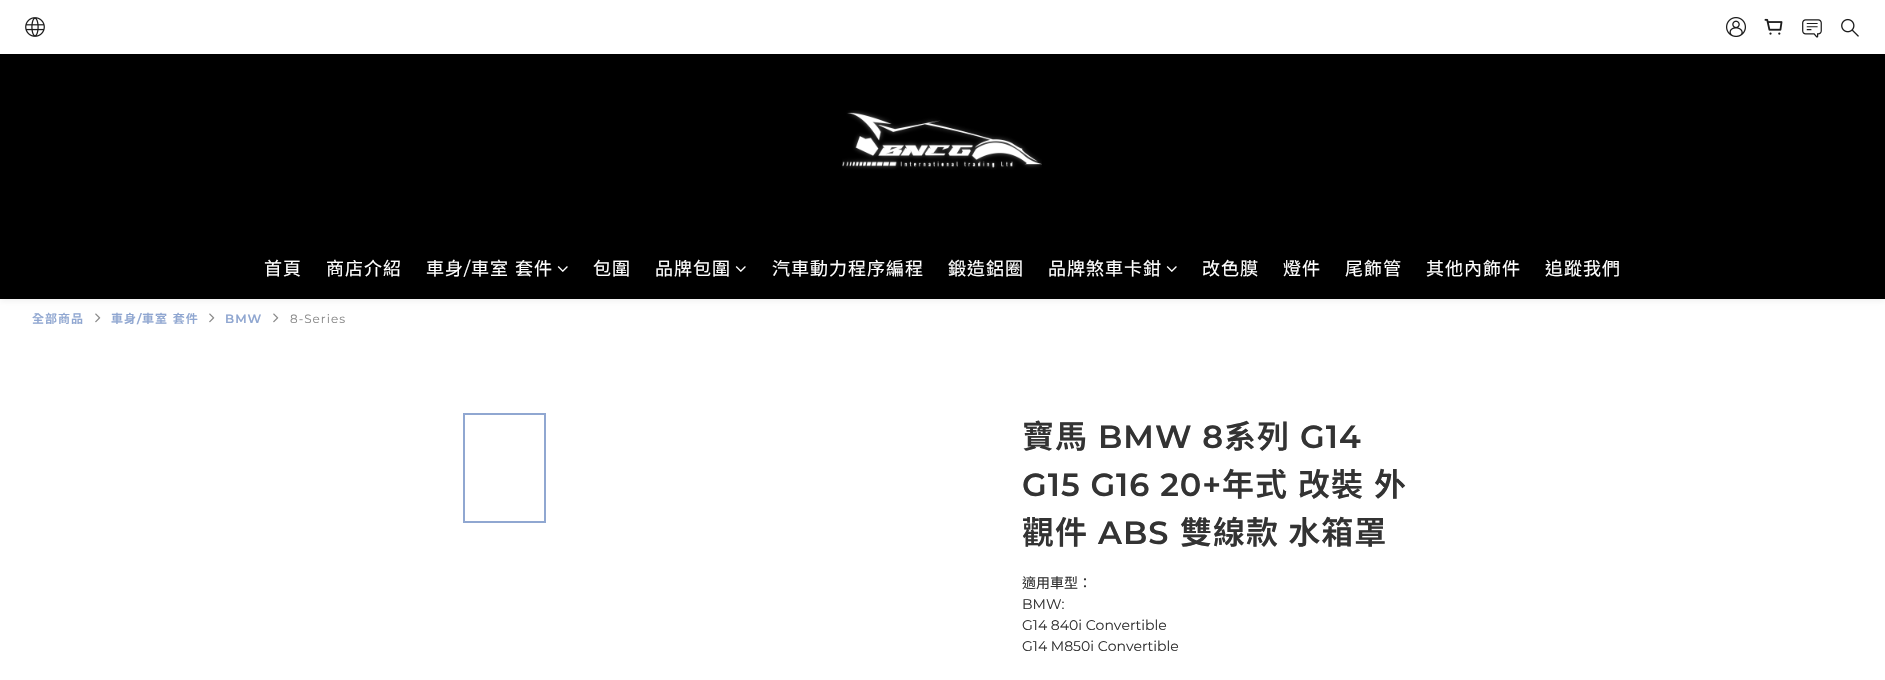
#include "include/core/SkBlurTypes.h"
#include "include/core/SkCanvas.h"
#include "include/core/SkData.h"
#include "include/core/SkFont.h"
#include "include/core/SkFontMgr.h"
#include "include/core/SkImage.h"
#include "include/core/SkMaskFilter.h"
#include "include/core/SkPaint.h"
#include "include/core/SkPathBuilder.h"
#include "include/core/SkTextBlob.h"
#include "include/effects/SkDashPathEffect.h"
#include "include/effects/SkGradientShader.h"
#include "include/utils/SkParsePath.h"

extern sk_sp<SkFontMgr> fontMgr;

void draw(SkCanvas* canvas) {
  SkPaint p;
  p.setAntiAlias(true);
  auto spacedText = [&](const char* s, float x, float y, const SkFont& font, const SkPaint& ink, float letter, float word) {
    std::vector<SkGlyphID> glyphs(font.countText(s, strlen(s), SkTextEncoding::kUTF8));
    std::vector<float> xs(glyphs.size());
    font.textToGlyphs(s, strlen(s), SkTextEncoding::kUTF8, glyphs);
    font.getXPos(glyphs, xs, x);
    float extra = 0;
    for (size_t i = 0; i < glyphs.size(); i++) {
      xs[i] += extra;
      extra += letter + word * (glyphs[i] == font.unicharToGlyph(' '));
    }
    canvas->drawTextBlob(SkTextBlob::MakeFromPosHGlyphs(glyphs, xs, y, font), 0, 0, ink);
  };
  canvas->clear(SK_ColorWHITE);
  p.setColor(SkColorSetARGB(15, 0, 0, 0));
  p.setMaskFilter(SkMaskFilter::MakeBlur(kNormal_SkBlurStyle, 3));
  canvas->drawRect(SkRect::MakeLTRB(0, 2, 1885, 301), p);
  p.setMaskFilter(nullptr);
  p.setColor(SK_ColorBLACK);
  canvas->drawRect(SkRect::MakeLTRB(0, 54, 1885, 299), p);
  p.setColor(SK_ColorWHITE);
  canvas->drawRect(SkRect::MakeLTRB(0, 0, 1885, 54), p);
  canvas->drawImageRect(SkImages::DeferredFromEncodedData(SkData::MakeFromFileName("images/1.png")), SkRect::MakeLTRB(25, 17, 45, 37), SkSamplingOptions());
  canvas->drawImageRect(SkImages::DeferredFromEncodedData(SkData::MakeFromFileName("images/2.png")), SkRect::MakeLTRB(1726, 17, 1746, 37), SkSamplingOptions());
  canvas->drawImageRect(SkImages::DeferredFromEncodedData(SkData::MakeFromFileName("images/3.png")), SkRect::MakeLTRB(1764, 18, 1783, 35), SkSamplingOptions());
  canvas->drawImageRect(SkImages::DeferredFromEncodedData(SkData::MakeFromFileName("images/4.png")), SkRect::MakeLTRB(1802, 19, 1822, 38), SkSamplingOptions());
  canvas->drawImageRect(SkImages::DeferredFromEncodedData(SkData::MakeFromFileName("images/5.png")), SkRect::MakeLTRB(1841, 18, 1859, 37), SkSamplingOptions());
  canvas->drawImageRect(SkImages::DeferredFromEncodedData(SkData::MakeFromFileName("images/6.png")), SkRect::MakeLTRB(842, 110, 1042, 170), SkSamplingOptions());
  canvas->drawImageRect(SkImages::DeferredFromEncodedData(SkData::MakeFromFileName("images/7.png")), SkRect::MakeLTRB(557, 266, 568, 272), SkSamplingOptions());
  canvas->drawImageRect(SkImages::DeferredFromEncodedData(SkData::MakeFromFileName("images/7.png")), SkRect::MakeLTRB(735, 266, 746, 272), SkSamplingOptions());
  canvas->drawImageRect(SkImages::DeferredFromEncodedData(SkData::MakeFromFileName("images/7.png")), SkRect::MakeLTRB(1166, 266, 1177, 272), SkSamplingOptions());
  canvas->drawImageRect(SkImages::DeferredFromEncodedData(SkData::MakeFromFileName("images/8.png")), SkRect::MakeLTRB(95, 313, 101, 323), SkSamplingOptions());
  canvas->drawImageRect(SkImages::DeferredFromEncodedData(SkData::MakeFromFileName("images/8.png")), SkRect::MakeLTRB(209, 313, 215, 323), SkSamplingOptions());
  canvas->drawImageRect(SkImages::DeferredFromEncodedData(SkData::MakeFromFileName("images/8.png")), SkRect::MakeLTRB(273, 313, 279, 323), SkSamplingOptions());
  p.setStyle(SkPaint::kStroke_Style);
  p.setStrokeWidth(2);
  p.setColor(SkColorSetRGB(144, 167, 209));
  canvas->drawRect(SkRect::MakeLTRB(464, 414, 545, 522), p);
  SkFont font1(fontMgr->matchFamilyStyle("Noto Sans TC", SkFontStyle::Normal()), 18);
  font1.setSubpixel(true);
  p.setStyle(SkPaint::kFill_Style);
  p.setColor(SK_ColorWHITE);
  spacedText("首頁", 264, 275, font1, p, 1, 0);
  spacedText("商店介紹", 326, 275, font1, p, 1, 0);
  spacedText("車身", 426, 275, font1, p, 1, 0);
  SkFont font2(fontMgr->matchFamilyStyle("Montserrat", SkFontStyle::Normal()), 18);
  font2.setSubpixel(true);
  spacedText("/", 464, 275, font2, p, 1, 0);
  spacedText("車室 套件", 471, 275, font1, p, 1, 1);
  spacedText("包圍", 593, 275, font1, p, 1, 0);
  spacedText("品牌包圍", 655, 275, font1, p, 1, 0);
  spacedText("汽車動力程序編程", 772, 275, font1, p, 1, 0);
  spacedText("鍛造鋁圈", 948, 275, font1, p, 1, 0);
  spacedText("品牌煞車卡鉗", 1048, 275, font1, p, 1, 0);
  spacedText("改色膜", 1202, 275, font1, p, 1, 0);
  spacedText("燈件", 1283, 275, font1, p, 1, 0);
  spacedText("尾飾管", 1345, 275, font1, p, 1, 0);
  spacedText("其他內飾件", 1426, 275, font1, p, 1, 0);
  spacedText("追蹤我們", 1545, 275, font1, p, 1, 0);
  SkFont font3(fontMgr->matchFamilyStyle("Noto Sans TC", SkFontStyle(600, SkFontStyle::kNormal_Width, SkFontStyle::kUpright_Slant)), 12);
  font3.setSubpixel(true);
  p.setColor(SkColorSetRGB(144, 167, 209));
  spacedText("全部商品", 32, 323, font3, p, 1, 0);
  spacedText("車身", 111, 323, font3, p, 1, 0);
  SkFont font4(fontMgr->matchFamilyStyle("Montserrat", SkFontStyle(600, SkFontStyle::kNormal_Width, SkFontStyle::kUpright_Slant)), 12);
  font4.setSubpixel(true);
  spacedText("/", 137, 323, font4, p, 1, 0);
  spacedText("車室 套件", 142, 323, font3, p, 1, 1);
  spacedText("BMW", 225, 323, font4, p, 1, 0);
  SkFont font5(fontMgr->matchFamilyStyle("Montserrat", SkFontStyle::Normal()), 12);
  font5.setSubpixel(true);
  p.setColor(SkColorSetRGB(136, 136, 136));
  spacedText("8-Series", 290, 323, font5, p, 1, 0);
  SkFont font6(fontMgr->matchFamilyStyle("Noto Sans TC", SkFontStyle(600, SkFontStyle::kNormal_Width, SkFontStyle::kUpright_Slant)), 32);
  font6.setSubpixel(true);
  p.setColor(SkColorSetRGB(51, 51, 51));
  spacedText("寶馬", 1022, 448, font6, p, 1, 0);
  SkFont font7(fontMgr->matchFamilyStyle("Montserrat", SkFontStyle(600, SkFontStyle::kNormal_Width, SkFontStyle::kUpright_Slant)), 32);
  font7.setSubpixel(true);
  spacedText("BMW 8", 1098, 448, font7, p, 1, 0);
  spacedText("系列", 1224, 448, font6, p, 1, 0);
  spacedText("G14", 1300, 448, font7, p, 1, 0);
  spacedText("G15 G16 20+", 1022, 496, font7, p, 1, 0);
  spacedText("年式", 1222, 496, font6, p, 1, 0);
  spacedText("改裝", 1298, 496, font6, p, 1, 0);
  spacedText("外", 1374, 496, font6, p, 1, 0);
  spacedText("觀件", 1022, 544, font6, p, 1, 0);
  spacedText("ABS", 1098, 544, font7, p, 1, 0);
  spacedText("雙線款 水箱罩", 1180, 544, font6, p, 1, 1);
  SkFont font8(fontMgr->matchFamilyStyle("Noto Sans TC", SkFontStyle::Normal()), 14);
  font8.setSubpixel(true);
  canvas->drawString("適用車型：", 1022, 588, font8, p);
  SkFont font9(fontMgr->matchFamilyStyle("Montserrat", SkFontStyle::Normal()), 14);
  font9.setSubpixel(true);
  canvas->drawString("BMW:", 1022, 609, font9, p);
  canvas->drawString("G14 840i Convertible", 1022, 630, font9, p);
  canvas->drawString("G14 M850i Convertible", 1022, 651, font9, p);
}
